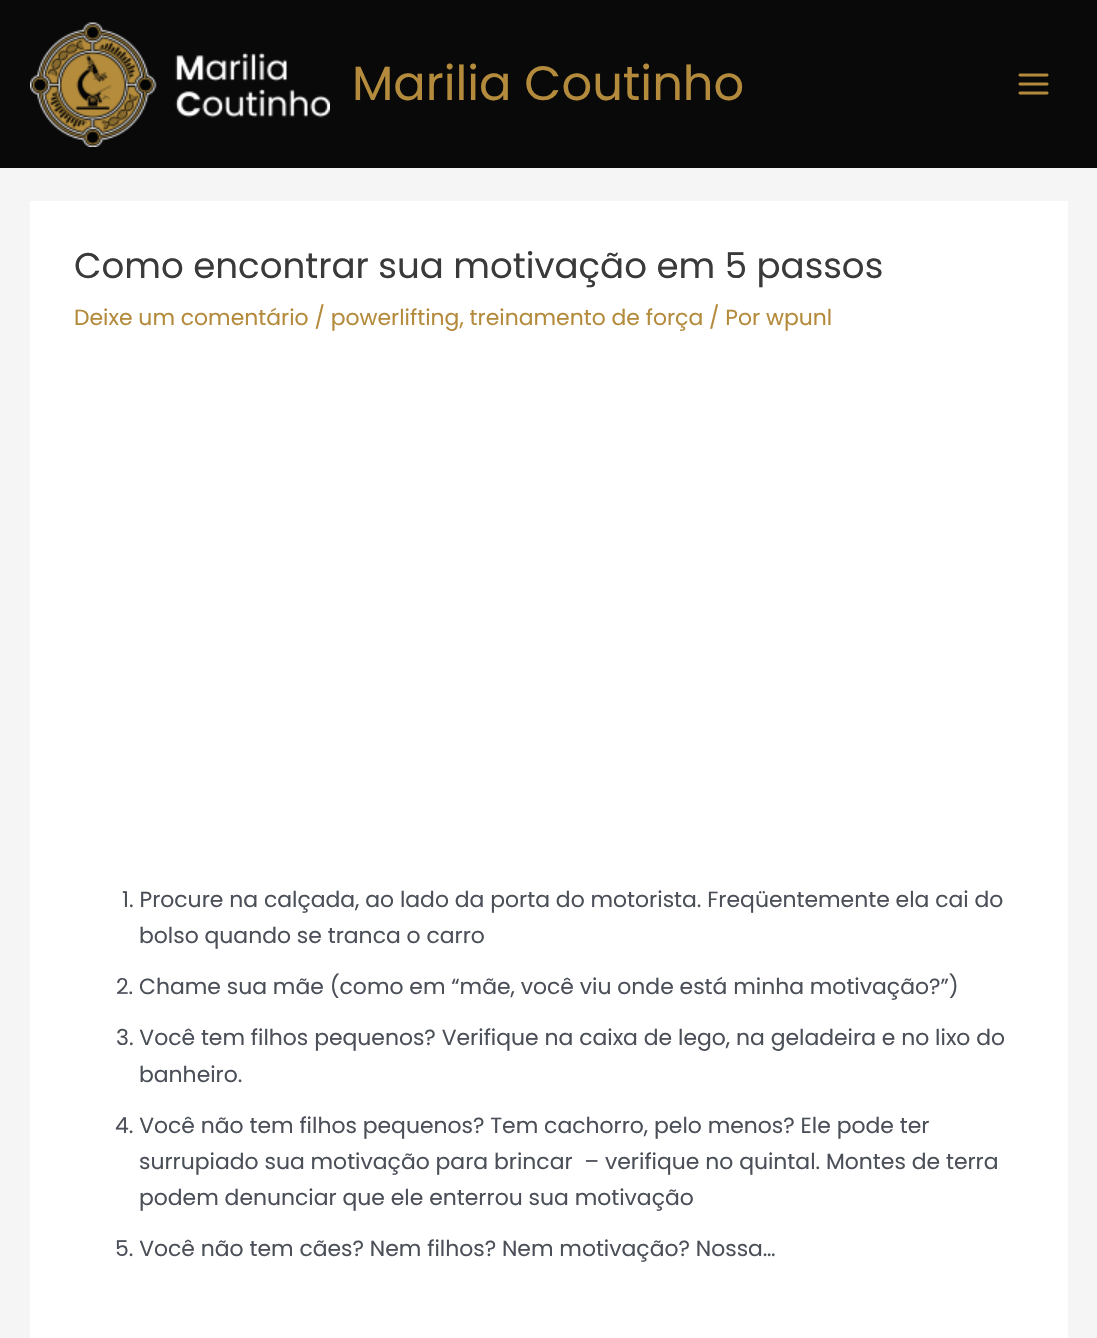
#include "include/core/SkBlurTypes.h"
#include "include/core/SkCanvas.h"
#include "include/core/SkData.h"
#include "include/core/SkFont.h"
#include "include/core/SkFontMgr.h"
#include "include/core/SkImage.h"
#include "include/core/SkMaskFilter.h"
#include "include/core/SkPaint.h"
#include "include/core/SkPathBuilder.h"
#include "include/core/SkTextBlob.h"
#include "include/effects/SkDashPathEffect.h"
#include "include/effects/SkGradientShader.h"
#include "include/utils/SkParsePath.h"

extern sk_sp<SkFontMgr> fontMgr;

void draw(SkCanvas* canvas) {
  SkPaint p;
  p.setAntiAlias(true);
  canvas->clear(SkColorSetRGB(245, 245, 245));
  p.setColor(SkColorSetRGB(9, 9, 9));
  canvas->drawRect(SkRect::MakeLTRB(0, 0, 1097, 168), p);
  canvas->drawImageRect(SkImages::DeferredFromEncodedData(SkData::MakeFromFileName("images/1.png")), SkRect::MakeLTRB(30, 22, 330, 147), SkSamplingOptions());
  canvas->drawImageRect(SkImages::DeferredFromEncodedData(SkData::MakeFromFileName("images/2.png")), SkRect::MakeLTRB(1018, 73, 1049, 95), SkSamplingOptions());
  p.setColor(SK_ColorWHITE);
  canvas->drawRect(SkRect::MakeLTRB(30, 201, 1068, 1338), p);
  SkFont font1(fontMgr->matchFamilyStyle("Poppins", SkFontStyle::Normal()), 48);
  font1.setSubpixel(true);
  p.setColor(SkColorSetRGB(180, 139, 60));
  canvas->drawString("Marilia Coutinho", 352, 100, font1, p);
  SkFont font2(fontMgr->matchFamilyStyle("Poppins", SkFontStyle::Normal()), 35.6f);
  font2.setSubpixel(true);
  p.setColor(SkColorSetRGB(58, 58, 58));
  canvas->drawString("Como encontrar sua motivação em 5 passos", 74, 278, font2, p);
  SkFont font3(fontMgr->matchFamilyStyle("Poppins", SkFontStyle::Normal()), 21.9f);
  font3.setSubpixel(true);
  p.setColor(SkColorSetRGB(180, 139, 60));
  canvas->drawString("Deixe um comentário / powerlifting, treinamento de força / Por wpunl", 74, 325, font3, p);
  p.setColor(SkColorSetRGB(75, 79, 88));
  canvas->drawString("1. Procure na calçada, ao lado da porta do motorista. Freqüentemente ela cai do", 122, 907, font3, p);
  canvas->drawString("bolso quando se tranca o carro", 139, 943, font3, p);
  canvas->drawString("2. Chame sua mãe (como em “mãe, você viu onde está minha motivação?”)", 116, 994, font3, p);
  canvas->drawString("3. Você tem filhos pequenos? Verifique na caixa de lego, na geladeira e no lixo do", 116, 1045, font3, p);
  canvas->drawString("banheiro.", 139, 1082, font3, p);
  canvas->drawString("4. Você não tem filhos pequenos? Tem cachorro, pelo menos? Ele pode ter", 115, 1133, font3, p);
  canvas->drawString("surrupiado sua motivação para brincar  – verifique no quintal. Montes de terra", 139, 1169, font3, p);
  canvas->drawString("podem denunciar que ele enterrou sua motivação", 139, 1205, font3, p);
  canvas->drawString("5. Você não tem cães? Nem filhos? Nem motivação? Nossa…", 115, 1256, font3, p);
}
